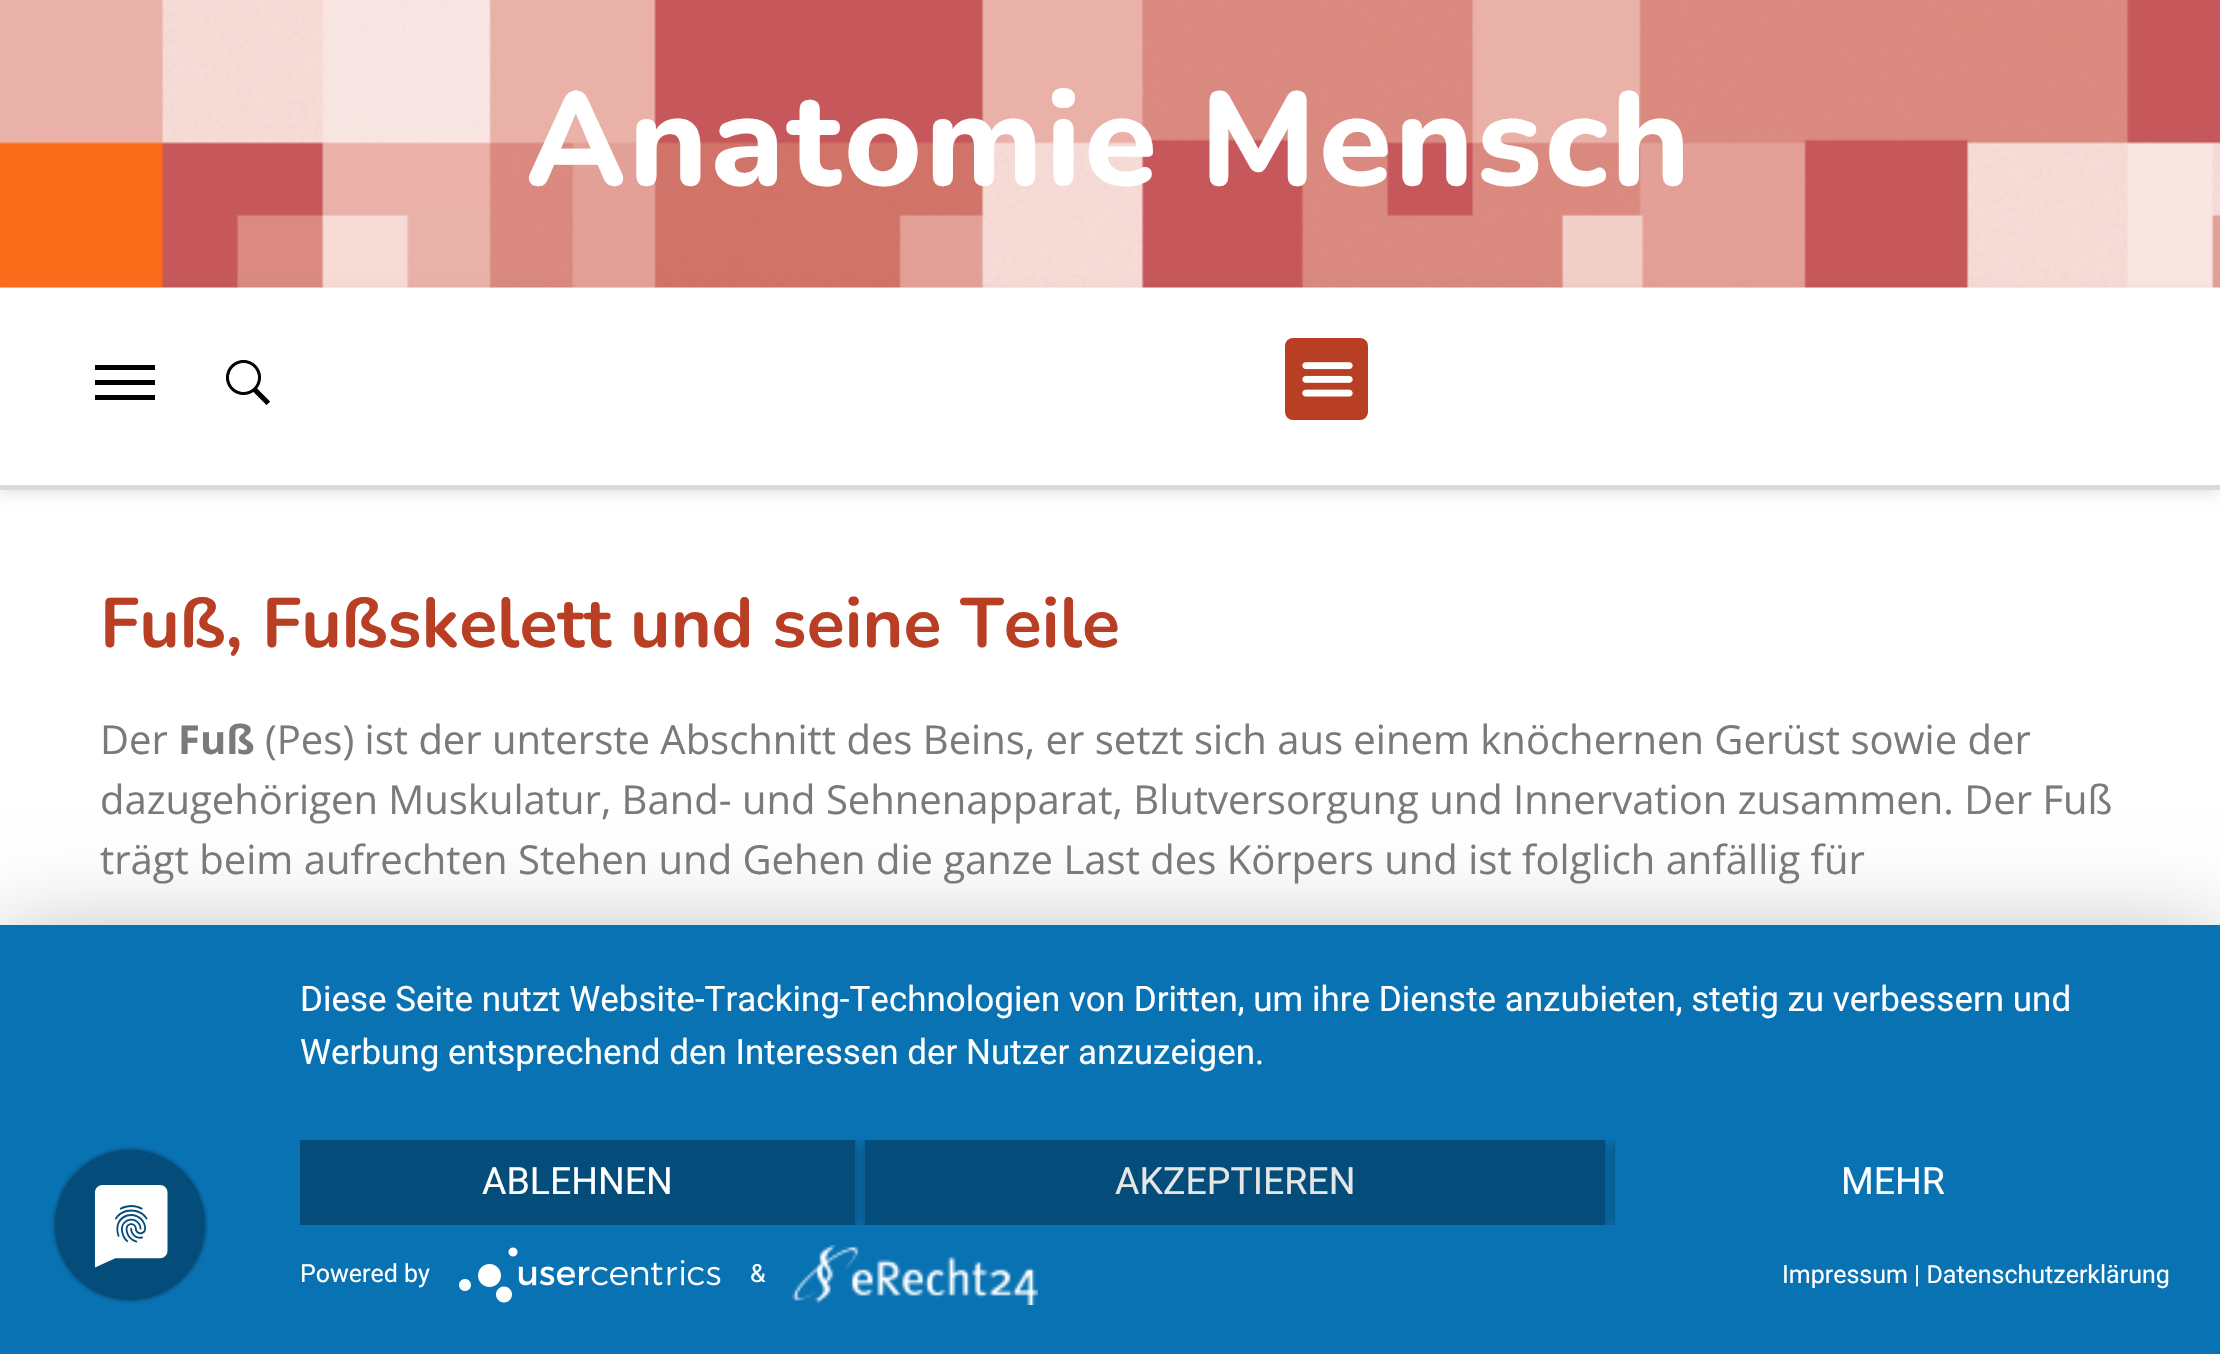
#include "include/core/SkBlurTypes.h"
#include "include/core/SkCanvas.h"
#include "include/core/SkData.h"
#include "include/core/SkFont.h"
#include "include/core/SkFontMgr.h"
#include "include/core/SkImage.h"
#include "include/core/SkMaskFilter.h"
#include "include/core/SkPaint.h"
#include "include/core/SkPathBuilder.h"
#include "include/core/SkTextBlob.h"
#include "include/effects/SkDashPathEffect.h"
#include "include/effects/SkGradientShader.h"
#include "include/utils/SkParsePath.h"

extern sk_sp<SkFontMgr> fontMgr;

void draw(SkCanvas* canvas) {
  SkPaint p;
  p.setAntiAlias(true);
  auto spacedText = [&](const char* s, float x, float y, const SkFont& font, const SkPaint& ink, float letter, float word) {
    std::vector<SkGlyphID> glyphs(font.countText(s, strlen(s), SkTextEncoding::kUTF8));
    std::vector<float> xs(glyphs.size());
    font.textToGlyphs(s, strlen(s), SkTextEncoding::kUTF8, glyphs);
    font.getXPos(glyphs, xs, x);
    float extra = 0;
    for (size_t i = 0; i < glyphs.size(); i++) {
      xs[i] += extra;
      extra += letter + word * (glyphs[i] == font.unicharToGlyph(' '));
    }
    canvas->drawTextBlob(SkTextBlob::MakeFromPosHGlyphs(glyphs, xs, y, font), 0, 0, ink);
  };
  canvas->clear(SK_ColorWHITE);
  canvas->drawImageRect(SkImages::DeferredFromEncodedData(SkData::MakeFromFileName("images/1.png")), SkRect::MakeLTRB(0, 0, 2220, 288), SkSamplingOptions());
  p.setColor(SkColorSetARGB(23, 0, 0, 0));
  p.setMaskFilter(SkMaskFilter::MakeBlur(kNormal_SkBlurStyle, 6));
  canvas->drawRect(SkRect::MakeLTRB(0, 293, 2220, 495), p);
  p.setMaskFilter(nullptr);
  p.setColor(SK_ColorWHITE);
  canvas->drawRect(SkRect::MakeLTRB(0, 288, 2220, 485), p);
  p.setColor(SkColorSetRGB(218, 218, 218));
  canvas->drawRect(SkRect::MakeLTRB(0, 485, 2220, 490), p);
  p.setColor(SK_ColorBLACK);
  canvas->drawRect(SkRect::MakeLTRB(95, 380, 155, 385), p);
  canvas->drawRect(SkRect::MakeLTRB(95, 365, 155, 370), p);
  canvas->drawRect(SkRect::MakeLTRB(95, 395, 155, 400), p);
  canvas->drawImageRect(SkImages::DeferredFromEncodedData(SkData::MakeFromFileName("images/2.png")), SkRect::MakeLTRB(226, 360, 270, 405), SkSamplingOptions());
  p.setColor(SkColorSetRGB(184, 62, 36));
  canvas->drawRoundRect(SkRect::MakeLTRB(1285, 338, 1368, 420), 8, 8, p);
  canvas->drawImageRect(SkImages::DeferredFromEncodedData(SkData::MakeFromFileName("images/3.png")), SkRect::MakeLTRB(1302, 362, 1353, 397), SkSamplingOptions());
  p.setColor(SkColorSetARGB(77, 0, 0, 0));
  p.setMaskFilter(SkMaskFilter::MakeBlur(kNormal_SkBlurStyle, 45));
  canvas->drawRect(SkRect::MakeLTRB(0, 940, 2220, 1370), p);
  p.setMaskFilter(nullptr);
  p.setColor(SkColorSetRGB(9, 114, 179));
  canvas->drawRect(SkRect::MakeLTRB(0, 925, 2220, 1354), p);
  canvas->drawImageRect(SkImages::DeferredFromEncodedData(SkData::MakeFromFileName("images/4.png")), SkRect::MakeLTRB(51, 1146, 209, 1304), SkSamplingOptions());
  canvas->save();
  canvas->clipRect(SkRect::MakeLTRB(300, 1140, 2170, 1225));
  p.setColor(SkColorSetARGB(102, 0, 0, 0));
  p.setMaskFilter(SkMaskFilter::MakeBlur(kNormal_SkBlurStyle, 5));
  canvas->drawRect(SkRect::MakeLTRB(300, 1143, 855, 1228), p);
  p.setMaskFilter(nullptr);
  canvas->restore();
  p.setColor(SkColorSetRGB(4, 77, 122));
  canvas->drawRect(SkRect::MakeLTRB(300, 1140, 855, 1225), p);
  canvas->save();
  canvas->clipRect(SkRect::MakeLTRB(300, 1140, 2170, 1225));
  p.setColor(SkColorSetARGB(102, 0, 0, 0));
  p.setMaskFilter(SkMaskFilter::MakeBlur(kNormal_SkBlurStyle, 5));
  canvas->drawRect(SkRect::MakeLTRB(865, 1143, 1605, 1228), p);
  p.setMaskFilter(nullptr);
  canvas->restore();
  p.setColor(SkColorSetRGB(4, 77, 122));
  canvas->drawRect(SkRect::MakeLTRB(865, 1140, 1605, 1225), p);
  canvas->save();
  canvas->clipRect(SkRect::MakeLTRB(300, 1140, 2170, 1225));
  canvas->clipRect(SkRect::MakeLTRB(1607, 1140, 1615, 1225));
  p.setColor(SkColorSetARGB(102, 0, 0, 0));
  p.setMaskFilter(SkMaskFilter::MakeBlur(kNormal_SkBlurStyle, 5));
  canvas->drawRect(SkRect::MakeLTRB(1615, 1143, 2170, 1228), p);
  p.setMaskFilter(nullptr);
  canvas->restore();
  canvas->drawImageRect(SkImages::DeferredFromEncodedData(SkData::MakeFromFileName("images/5.png")), SkRect::MakeLTRB(459, 1247, 721, 1303), SkSamplingOptions());
  canvas->drawImageRect(SkImages::DeferredFromEncodedData(SkData::MakeFromFileName("images/6.png")), SkRect::MakeLTRB(792, 1245, 1038, 1305), SkSamplingOptions());
  SkFont font1(fontMgr->matchFamilyStyle("Nunito", SkFontStyle(800, SkFontStyle::kNormal_Width, SkFontStyle::kUpright_Slant)), 132.5f);
  font1.setSubpixel(true);
  p.setColor(SK_ColorWHITE);
  spacedText("Anatomie Mensch", 526, 185, font1, p, 3, 0);
  SkFont font2(fontMgr->matchFamilyStyle("Nunito", SkFontStyle::Bold()), 70);
  font2.setSubpixel(true);
  p.setColor(SkColorSetRGB(184, 62, 36));
  canvas->drawString("Fuß, Fußskelett und seine Teile", 100, 647, font2, p);
  SkFont font3(fontMgr->matchFamilyStyle("Open Sans", SkFontStyle::Normal()), 40);
  font3.setSubpixel(true);
  p.setColor(SkColorSetRGB(122, 122, 122));
  canvas->drawString("Der", 100, 754, font3, p);
  SkFont font4(fontMgr->matchFamilyStyle("Open Sans", SkFontStyle::Bold()), 40);
  font4.setSubpixel(true);
  canvas->drawString("Fuß", 178, 754, font4, p);
  canvas->drawString("(Pes) ist der unterste Abschnitt des Beins, er setzt sich aus einem knöchernen Gerüst sowie der", 265, 754, font3, p);
  canvas->drawString("dazugehörigen Muskulatur, Band- und Sehnenapparat, Blutversorgung und Innervation zusammen. Der Fuß", 100, 814, font3, p);
  canvas->drawString("trägt beim aufrechten Stehen und Gehen die ganze Last des Körpers und ist folglich anfällig für", 100, 874, font3, p);
  SkFont font5(fontMgr->matchFamilyStyle("Roboto", SkFontStyle::Normal()), 35);
  font5.setSubpixel(true);
  p.setColor(SK_ColorWHITE);
  canvas->drawString("Diese Seite nutzt Website-Tracking-Technologien von Dritten, um ihre Dienste anzubieten, stetig zu verbessern und", 300, 1011, font5, p);
  canvas->drawString("Werbung entsprechend den Interessen der Nutzer anzuzeigen.", 300, 1064, font5, p);
  SkFont font6(fontMgr->matchFamilyStyle("Roboto", SkFontStyle::Normal()), 37.5f);
  font6.setSubpixel(true);
  canvas->drawString("ABLEHNEN", 482, 1194, font6, p);
  p.setColor(SkColorSetRGB(230, 230, 230));
  canvas->drawString("AKZEPTIEREN", 1115, 1194, font6, p);
  p.setColor(SK_ColorWHITE);
  canvas->drawString("MEHR", 1841, 1194, font6, p);
  SkFont font7(fontMgr->matchFamilyStyle("Roboto", SkFontStyle::Normal()), 25);
  font7.setSubpixel(true);
  canvas->drawString("Powered by", 300, 1282, font7, p);
  canvas->drawString("&", 750, 1282, font7, p);
  canvas->drawString("Impressum | Datenschutzerklärung", 1782, 1283, font7, p);
}
